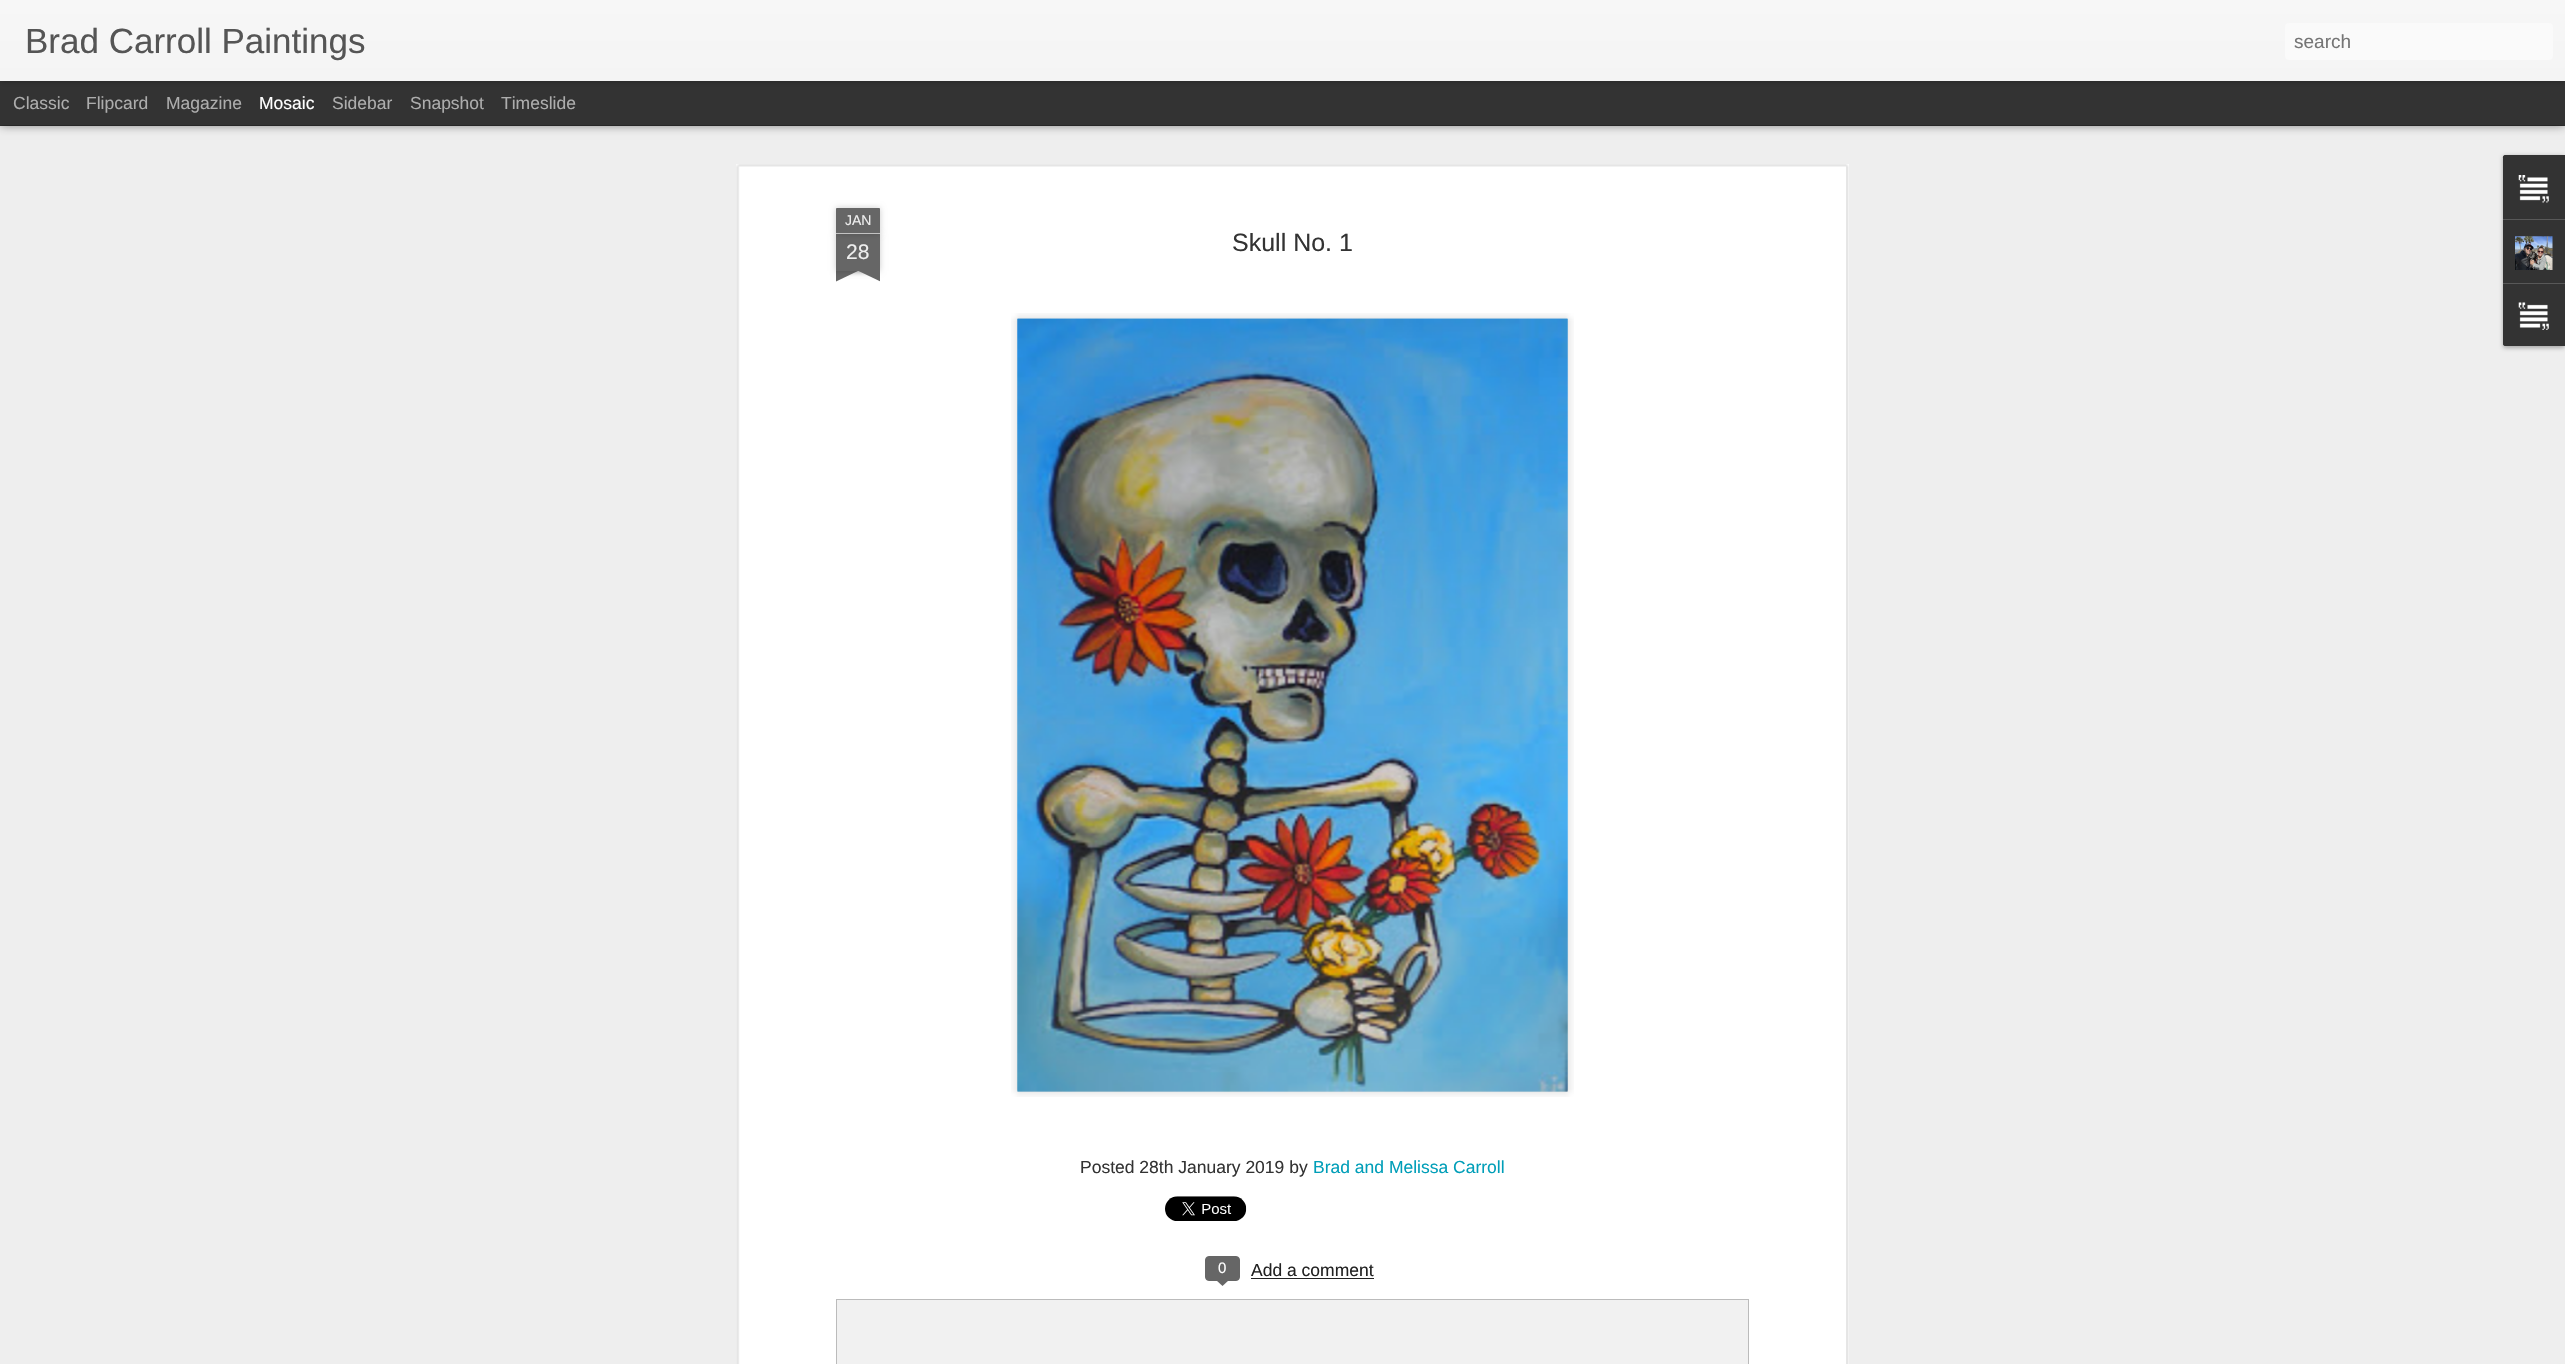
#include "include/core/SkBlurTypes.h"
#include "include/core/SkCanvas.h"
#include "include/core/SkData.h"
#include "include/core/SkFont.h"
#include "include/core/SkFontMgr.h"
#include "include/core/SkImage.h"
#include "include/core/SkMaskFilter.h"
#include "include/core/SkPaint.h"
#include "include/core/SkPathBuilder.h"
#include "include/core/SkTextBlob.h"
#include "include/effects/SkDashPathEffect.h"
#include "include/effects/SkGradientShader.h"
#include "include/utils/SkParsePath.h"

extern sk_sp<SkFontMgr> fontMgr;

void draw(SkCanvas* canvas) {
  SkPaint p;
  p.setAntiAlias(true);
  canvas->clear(SkColorSetRGB(51, 51, 51));
  p.setColor(SkColorSetRGB(238, 238, 238));
  canvas->drawRect(SkRect::MakeLTRB(0, 126, 2565, 1364), p);
  p.setColor(SkColorSetARGB(128, 0, 0, 0));
  p.setMaskFilter(SkMaskFilter::MakeBlur(kNormal_SkBlurStyle, 5));
  canvas->drawRect(SkRect::MakeLTRB(0, 81, 2565, 125), p);
  p.setMaskFilter(nullptr);
  p.setColor(SkColorSetRGB(51, 51, 51));
  canvas->drawRect(SkRect::MakeLTRB(0, 81, 2565, 125), p);
  p.setColor(SkColorSetARGB(77, 0, 0, 0));
  p.setMaskFilter(SkMaskFilter::MakeBlur(kNormal_SkBlurStyle, 3));
  canvas->drawRect(SkRect::MakeLTRB(0, 0, 2565, 81), p);
  p.setMaskFilter(nullptr);
  {
    const SkColor colors[] = {SkColorSetRGB(247, 247, 247), SkColorSetRGB(244, 244, 244)};
    const float stops[] = {0, 1};
    const SkPoint ends[] = {{0, 0}, {0, 81}};
    p.setShader(SkGradientShader::MakeLinear(ends, colors, stops, 2, SkTileMode::kClamp));
    p.setAlpha(255);
  }
  canvas->drawRect(SkRect::MakeLTRB(0, 0, 2565, 81), p);
  p.setShader(nullptr);
  p.setColor(SkColorSetRGB(250, 250, 250));
  canvas->drawRoundRect(SkRect::MakeLTRB(2285, 23, 2553, 60), 4, 4, p);
  p.setColor(SK_ColorWHITE);
  canvas->drawRect(SkRect::MakeLTRB(736, 164, 1849, 1364), p);
  canvas->drawImageRect(SkImages::DeferredFromEncodedData(SkData::MakeFromFileName("images/1.png")), SkRect::MakeLTRB(736, 164, 1849, 1364), SkSamplingOptions());
  p.setColor(SkColorSetARGB(51, 0, 0, 0));
  p.setMaskFilter(SkMaskFilter::MakeBlur(kNormal_SkBlurStyle, 3));
  canvas->drawRect(SkRect::MakeLTRB(836, 234, 880, 271), p);
  p.setMaskFilter(nullptr);
  p.setColor(SkColorSetRGB(102, 102, 102));
  canvas->drawRect(SkRect::MakeLTRB(836, 234, 880, 271), p);
  p.setColor(SkColorSetARGB(51, 0, 0, 0));
  p.setMaskFilter(SkMaskFilter::MakeBlur(kNormal_SkBlurStyle, 3));
  canvas->drawRoundRect(SkRect::MakeLTRB(836, 208, 880, 234), 1, 1, p);
  p.setMaskFilter(nullptr);
  p.setColor(SkColorSetRGB(102, 102, 102));
  canvas->drawPath(SkPathBuilder().moveTo(837, 208).lineTo(879, 208).cubicTo(879.5f, 208, 880, 208.5f, 880, 209).lineTo(880, 234).lineTo(836, 234).lineTo(836, 209).cubicTo(836, 208.5f, 836.5f, 208, 837, 208).close().detach(), p);
  p.setColor(SkColorSetRGB(194, 194, 194));
  canvas->drawRect(SkRect::MakeLTRB(836, 233, 880, 234), p);
  canvas->save();
  canvas->clipRect(SkRect::MakeLTRB(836, 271, 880, 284));
  p.setColor(SkColorSetARGB(51, 0, 0, 0));
  p.setMaskFilter(SkMaskFilter::MakeBlur(kNormal_SkBlurStyle, 3));
  canvas->drawRect(SkRect::MakeLTRB(825, 259, 888, 271), p);
  p.setMaskFilter(nullptr);
  canvas->restore();
  canvas->save();
  canvas->clipRect(SkRect::MakeLTRB(836, 271, 880, 284));
  p.setColor(SkColorSetRGB(102, 102, 102));
  canvas->drawPath(SkPathBuilder().moveTo(825, 273).lineTo(882, 246).lineTo(887, 257).lineTo(831, 284).close().detach(), p);
  canvas->restore();
  canvas->save();
  canvas->clipRect(SkRect::MakeLTRB(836, 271, 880, 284));
  p.setColor(SkColorSetARGB(51, 0, 0, 0));
  p.setMaskFilter(SkMaskFilter::MakeBlur(kNormal_SkBlurStyle, 3));
  canvas->drawRect(SkRect::MakeLTRB(829, 259, 891, 271), p);
  p.setMaskFilter(nullptr);
  canvas->restore();
  canvas->save();
  canvas->clipRect(SkRect::MakeLTRB(836, 271, 880, 284));
  p.setColor(SkColorSetRGB(102, 102, 102));
  canvas->drawPath(SkPathBuilder().moveTo(834, 246).lineTo(891, 273).lineTo(886, 284).lineTo(829, 257).close().detach(), p);
  canvas->restore();
  canvas->drawImageRect(SkImages::DeferredFromEncodedData(SkData::MakeFromFileName("images/2.png")), SkRect::MakeLTRB(1011, 313, 1574, 1097), SkSamplingOptions());
  canvas->drawImageRect(SkImages::DeferredFromEncodedData(SkData::MakeFromFileName("images/3.png")), SkRect::MakeLTRB(1017, 318, 1568, 1092), SkSamplingOptions());
  canvas->drawImageRect(SkImages::DeferredFromEncodedData(SkData::MakeFromFileName("images/4.png")), SkRect::MakeLTRB(1165, 1196, 1247, 1221), SkSamplingOptions());
  canvas->drawRoundRect(SkRect::MakeLTRB(1205.5f, 1256.5f, 1239.5f, 1280.5f), 3.5f, 3.5f, p);
  p.setStyle(SkPaint::kStroke_Style);
  p.setStrokeWidth(1);
  canvas->drawRoundRect(SkRect::MakeLTRB(1205.5f, 1256.5f, 1239.5f, 1280.5f), 3.5f, 3.5f, p);
  p.setStyle(SkPaint::kFill_Style);
  canvas->drawPath(SkPathBuilder().moveTo(1216, 1280).lineTo(1229, 1280).lineTo(1222.5f, 1286).close().detach(), p);
  p.setColor(SkColorSetRGB(34, 34, 34));
  canvas->drawRect(SkRect::MakeLTRB(1251, 1278, 1374, 1279), p);
  p.setColor(SkColorSetRGB(241, 241, 241));
  canvas->drawRect(SkRect::MakeLTRB(836.5f, 1299.5f, 1748.5f, 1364.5f), p);
  p.setStyle(SkPaint::kStroke_Style);
  p.setColor(SkColorSetRGB(187, 187, 187));
  canvas->drawRect(SkRect::MakeLTRB(836.5f, 1299.5f, 1748.5f, 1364.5f), p);
  p.setStyle(SkPaint::kFill_Style);
  p.setColor(SkColorSetARGB(77, 0, 0, 0));
  p.setMaskFilter(SkMaskFilter::MakeBlur(kNormal_SkBlurStyle, 2));
  canvas->drawRoundRect(SkRect::MakeLTRB(2503, 156, 2565, 348), 2.5f, 2.5f, p);
  p.setMaskFilter(nullptr);
  p.setColor(SkColorSetRGB(51, 51, 51));
  canvas->drawPath(SkPathBuilder().moveTo(2505.5f, 155).lineTo(2565, 155).lineTo(2565, 346).lineTo(2505.5f, 346).cubicTo(2504, 346, 2503, 345, 2503, 343.5f).lineTo(2503, 157.5f).cubicTo(2503, 156, 2504, 155, 2505.5f, 155).close().detach(), p);
  canvas->drawPath(SkPathBuilder().moveTo(2505.5f, 155).lineTo(2565, 155).lineTo(2565, 219).lineTo(2503, 219).lineTo(2503, 157.5f).cubicTo(2503, 156, 2504, 155, 2505.5f, 155).close().detach(), p);
  canvas->drawImageRect(SkImages::DeferredFromEncodedData(SkData::MakeFromFileName("images/5.png")), SkRect::MakeLTRB(2518, 175, 2549, 203), SkSamplingOptions());
  p.setColor(SkColorSetRGB(88, 88, 88));
  canvas->drawRect(SkRect::MakeLTRB(2503, 219, 2565, 220), p);
  canvas->drawImageRect(SkImages::DeferredFromEncodedData(SkData::MakeFromFileName("images/6.png")), SkRect::MakeLTRB(2515, 236, 2553, 270), SkSamplingOptions());
  p.setColor(SkColorSetRGB(51, 51, 51));
  canvas->drawPath(SkPathBuilder().moveTo(2503, 283).lineTo(2565, 283).lineTo(2565, 346).lineTo(2505.5f, 346).cubicTo(2504, 346, 2503, 345, 2503, 343.5f).close().detach(), p);
  p.setColor(SkColorSetRGB(88, 88, 88));
  canvas->drawRect(SkRect::MakeLTRB(2503, 283, 2565, 284), p);
  canvas->drawImageRect(SkImages::DeferredFromEncodedData(SkData::MakeFromFileName("images/7.png")), SkRect::MakeLTRB(2518, 302, 2549, 330), SkSamplingOptions());
  SkFont font1(fontMgr->matchFamilyStyle("Liberation Sans", SkFontStyle::Normal()), 35);
  font1.setSubpixel(true);
  p.setColor(SkColorSetRGB(85, 85, 85));
  canvas->drawString("Brad Carroll Paintings", 25, 53, font1, p);
  SkFont font2(fontMgr->matchFamilyStyle("Liberation Sans", SkFontStyle::Normal()), 19);
  font2.setSubpixel(true);
  p.setColor(SkColorSetRGB(117, 117, 117));
  canvas->drawString("search", 2294, 48, font2, p);
  SkFont font3(fontMgr->matchFamilyStyle("Liberation Sans", SkFontStyle::Normal()), 17.5f);
  font3.setSubpixel(true);
  p.setColor(SkColorSetRGB(173, 173, 173));
  canvas->drawString("Classic", 13, 109, font3, p);
  canvas->drawString("Flipcard", 86, 109, font3, p);
  canvas->drawString("Magazine", 166, 109, font3, p);
  p.setColor(SK_ColorWHITE);
  canvas->drawString("Mosaic", 259, 109, font3, p);
  p.setColor(SkColorSetRGB(173, 173, 173));
  canvas->drawString("Sidebar", 332, 109, font3, p);
  canvas->drawString("Snapshot", 410, 109, font3, p);
  canvas->drawString("Timeslide", 501, 109, font3, p);
  SkFont font4(fontMgr->matchFamilyStyle("Liberation Sans", SkFontStyle::Normal()), 14);
  font4.setSubpixel(true);
  p.setColor(SkColorSetRGB(238, 238, 238));
  canvas->drawString("JAN", 845, 225, font4, p);
  SkFont font5(fontMgr->matchFamilyStyle("Liberation Sans", SkFontStyle::Normal()), 21);
  font5.setSubpixel(true);
  canvas->drawString("28", 846, 259, font5, p);
  SkFont font6(fontMgr->matchFamilyStyle("Liberation Sans", SkFontStyle::Normal()), 25);
  font6.setSubpixel(true);
  p.setColor(SkColorSetRGB(51, 51, 51));
  canvas->drawString("Skull No. 1", 1232, 251, font6, p);
  canvas->drawString("Posted 28th January 2019 by", 1080, 1173, font3, p);
  p.setColor(SkColorSetRGB(0, 158, 184));
  canvas->drawString("Brad and Melissa Carroll", 1313, 1173, font3, p);
  SkFont font7(fontMgr->matchFamilyStyle("Liberation Sans", SkFontStyle::Normal()), 15);
  font7.setSubpixel(true);
  p.setColor(SK_ColorWHITE);
  canvas->drawString("0", 1218, 1273, font7, p);
  p.setColor(SkColorSetRGB(34, 34, 34));
  canvas->drawString("Add a comment", 1251, 1276, font3, p);
}
